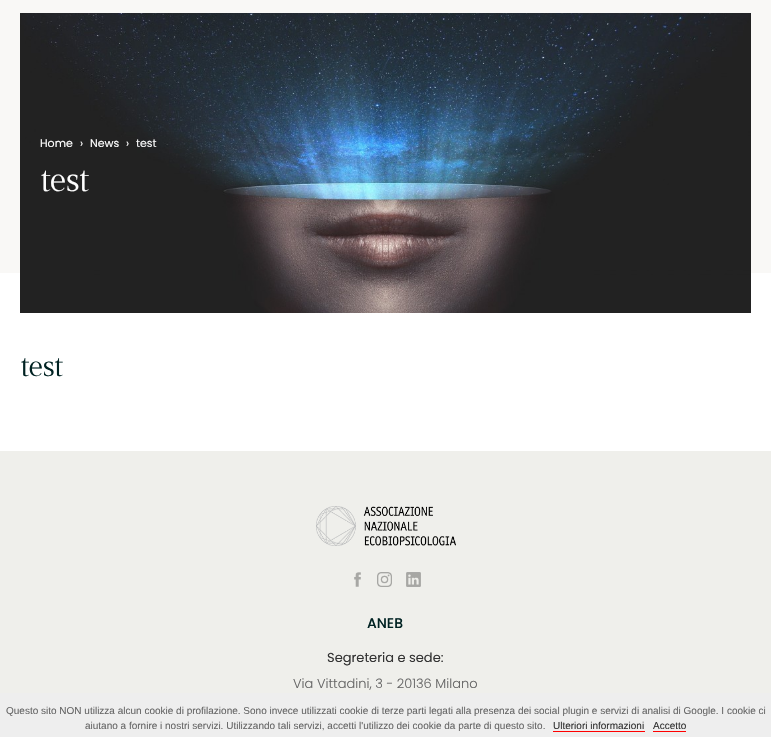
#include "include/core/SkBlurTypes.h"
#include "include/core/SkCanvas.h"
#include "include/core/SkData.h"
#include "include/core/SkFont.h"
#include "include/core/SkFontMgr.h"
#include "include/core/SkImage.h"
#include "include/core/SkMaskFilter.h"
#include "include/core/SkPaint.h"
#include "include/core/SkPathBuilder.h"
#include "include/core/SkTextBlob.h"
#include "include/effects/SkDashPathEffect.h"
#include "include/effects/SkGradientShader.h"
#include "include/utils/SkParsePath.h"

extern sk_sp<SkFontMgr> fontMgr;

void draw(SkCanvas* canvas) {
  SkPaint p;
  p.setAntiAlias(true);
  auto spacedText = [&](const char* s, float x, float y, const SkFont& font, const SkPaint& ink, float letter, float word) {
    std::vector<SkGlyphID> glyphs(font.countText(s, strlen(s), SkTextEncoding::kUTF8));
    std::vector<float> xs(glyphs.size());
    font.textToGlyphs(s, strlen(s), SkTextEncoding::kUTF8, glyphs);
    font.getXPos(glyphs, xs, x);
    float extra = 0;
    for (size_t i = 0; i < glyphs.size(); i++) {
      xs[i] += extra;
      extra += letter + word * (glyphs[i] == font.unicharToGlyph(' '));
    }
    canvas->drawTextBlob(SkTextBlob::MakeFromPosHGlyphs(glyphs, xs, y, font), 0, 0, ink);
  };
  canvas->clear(SK_ColorWHITE);
  p.setColor(SkColorSetRGB(249, 248, 246));
  canvas->drawRect(SkRect::MakeLTRB(0, 0, 771, 273), p);
  canvas->drawImageRect(SkImages::DeferredFromEncodedData(SkData::MakeFromFileName("images/1.png")), SkRect::MakeLTRB(20, 13, 751, 313), SkSamplingOptions());
  p.setColor(SkColorSetRGB(239, 239, 235));
  canvas->drawRect(SkRect::MakeLTRB(0, 451, 771, 693), p);
  canvas->drawImageRect(SkImages::DeferredFromEncodedData(SkData::MakeFromFileName("images/2.png")), SkRect::MakeLTRB(316, 506, 456, 546), SkSamplingOptions());
  canvas->drawImageRect(SkImages::DeferredFromEncodedData(SkData::MakeFromFileName("images/3.png")), SkRect::MakeLTRB(354, 572, 361, 587), SkSamplingOptions());
  canvas->drawImageRect(SkImages::DeferredFromEncodedData(SkData::MakeFromFileName("images/4.png")), SkRect::MakeLTRB(377, 572, 392, 587), SkSamplingOptions());
  canvas->drawImageRect(SkImages::DeferredFromEncodedData(SkData::MakeFromFileName("images/5.png")), SkRect::MakeLTRB(406, 572, 421, 587), SkSamplingOptions());
  p.setColor(SkColorSetRGB(238, 238, 238));
  canvas->drawRect(SkRect::MakeLTRB(0, 693, 771, 737), p);
  p.setColor(SkColorSetRGB(255, 0, 0));
  canvas->drawRect(SkRect::MakeLTRB(553, 731, 645, 732), p);
  canvas->drawRect(SkRect::MakeLTRB(653, 731, 686, 732), p);
  SkFont font1(fontMgr->matchFamilyStyle("Poppins", SkFontStyle::Normal()), 11);
  font1.setSubpixel(true);
  p.setColor(SK_ColorWHITE);
  canvas->drawString("Home", 40, 147, font1, p);
  p.setColor(SkColorSetRGB(248, 248, 248));
  canvas->drawString("›", 80, 147, font1, p);
  p.setColor(SK_ColorWHITE);
  canvas->drawString("News", 90, 147, font1, p);
  p.setColor(SkColorSetRGB(248, 248, 248));
  canvas->drawString("›", 126, 147, font1, p);
  canvas->drawString("test", 136, 147, font1, p);
  SkFont font2(fontMgr->matchFamilyStyle("Gilda Display", SkFontStyle::Normal()), 34);
  font2.setSubpixel(true);
  p.setColor(SK_ColorWHITE);
  spacedText("test", 40, 191, font2, p, -1, 0);
  SkFont font3(fontMgr->matchFamilyStyle("Gilda Display", SkFontStyle::Normal()), 30);
  font3.setSubpixel(true);
  p.setColor(SkColorSetRGB(0, 34, 34));
  spacedText("test", 20, 376, font3, p, -1, 0);
  SkFont font4(fontMgr->matchFamilyStyle("Poppins", SkFontStyle(500, SkFontStyle::kNormal_Width, SkFontStyle::kUpright_Slant)), 14);
  font4.setSubpixel(true);
  canvas->drawString("ANEB", 367, 628, font4, p);
  SkFont font5(fontMgr->matchFamilyStyle("Poppins", SkFontStyle::Normal()), 13);
  font5.setSubpixel(true);
  p.setColor(SkColorSetRGB(51, 51, 51));
  canvas->drawString("Segreteria e sede:", 327, 662, font5, p);
  SkFont font6(fontMgr->matchFamilyStyle("Poppins", SkFontStyle(300, SkFontStyle::kNormal_Width, SkFontStyle::kUpright_Slant)), 13);
  font6.setSubpixel(true);
  p.setColor(SkColorSetRGB(102, 102, 102));
  canvas->drawString("Via Vittadini, 3 - 20136 Milano", 293, 688, font6, p);
  SkFont font7(fontMgr->matchFamilyStyle("Liberation Sans", SkFontStyle::Normal()), 10);
  font7.setSubpixel(true);
  canvas->drawString("Questo sito NON utilizza alcun cookie di profilazione. Sono invece utilizzati cookie di terze parti legati alla presenza dei social plugin e servizi di analisi di Google. I cookie ci", 6, 714, font7, p);
  canvas->drawString("aiutano a fornire i nostri servizi. Utilizzando tali servizi, accetti l'utilizzo dei cookie da parte di questo sito.", 85, 729, font7, p);
  p.setColor(SkColorSetRGB(51, 51, 51));
  canvas->drawString("Ulteriori informazioni", 553, 729, font7, p);
  canvas->drawString("Accetto", 653, 729, font7, p);
}
